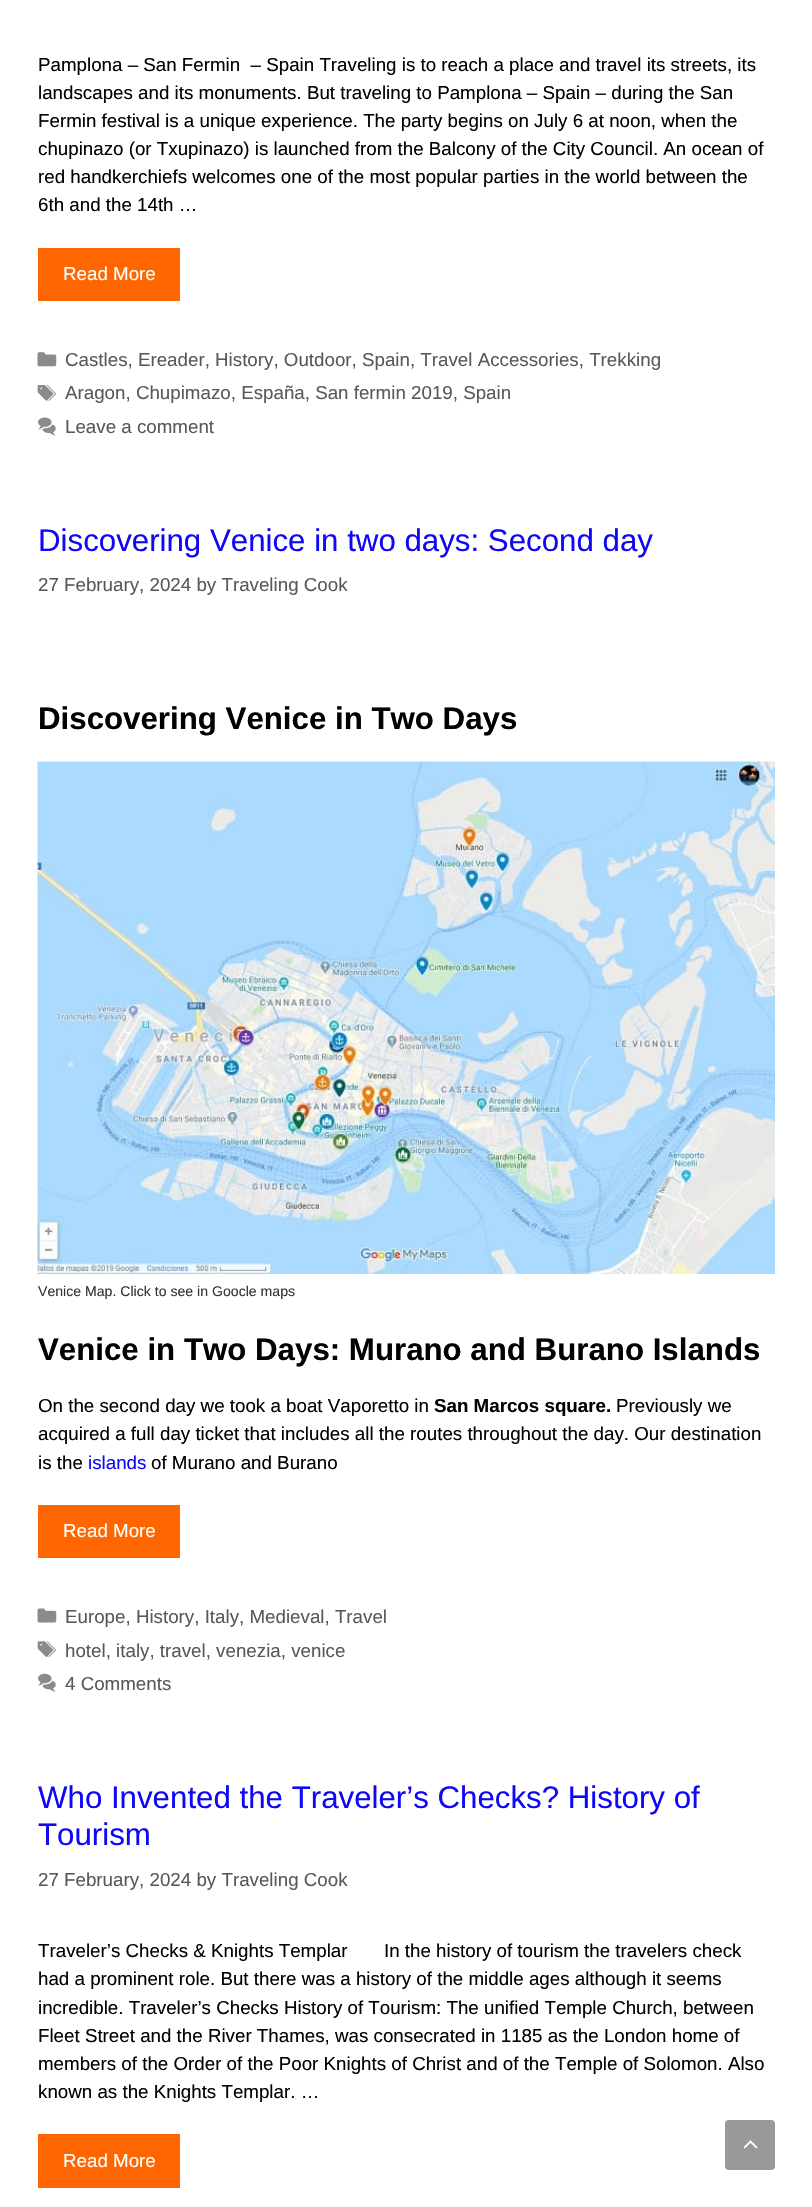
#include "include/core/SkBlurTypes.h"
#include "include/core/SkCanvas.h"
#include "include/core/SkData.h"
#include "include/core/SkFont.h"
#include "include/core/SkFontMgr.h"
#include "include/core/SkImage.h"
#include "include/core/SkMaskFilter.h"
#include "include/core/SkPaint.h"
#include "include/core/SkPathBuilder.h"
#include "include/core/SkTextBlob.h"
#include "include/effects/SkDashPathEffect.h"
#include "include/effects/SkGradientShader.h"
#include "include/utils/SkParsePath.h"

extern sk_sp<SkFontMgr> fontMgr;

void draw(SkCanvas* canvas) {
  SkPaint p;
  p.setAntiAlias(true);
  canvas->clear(SK_ColorWHITE);
  p.setColor(SkColorSetRGB(255, 102, 0));
  canvas->drawRect(SkRect::MakeLTRB(38, 248, 180, 301), p);
  canvas->drawImageRect(SkImages::DeferredFromEncodedData(SkData::MakeFromFileName("images/1.png")), SkRect::MakeLTRB(37, 352, 57, 367), SkSamplingOptions());
  canvas->drawImageRect(SkImages::DeferredFromEncodedData(SkData::MakeFromFileName("images/2.png")), SkRect::MakeLTRB(37, 385, 56, 401), SkSamplingOptions());
  canvas->drawImageRect(SkImages::DeferredFromEncodedData(SkData::MakeFromFileName("images/3.png")), SkRect::MakeLTRB(38, 417, 56, 436), SkSamplingOptions());
  canvas->drawImageRect(SkImages::DeferredFromEncodedData(SkData::MakeFromFileName("images/4.png")), SkRect::MakeLTRB(37, 761, 775, 1274), SkSamplingOptions());
  canvas->drawRect(SkRect::MakeLTRB(38, 1505, 180, 1558), p);
  canvas->drawImageRect(SkImages::DeferredFromEncodedData(SkData::MakeFromFileName("images/5.png")), SkRect::MakeLTRB(37, 1608, 57, 1623), SkSamplingOptions());
  canvas->drawImageRect(SkImages::DeferredFromEncodedData(SkData::MakeFromFileName("images/6.png")), SkRect::MakeLTRB(37, 1641, 56, 1657), SkSamplingOptions());
  canvas->drawImageRect(SkImages::DeferredFromEncodedData(SkData::MakeFromFileName("images/7.png")), SkRect::MakeLTRB(38, 1673, 56, 1692), SkSamplingOptions());
  canvas->drawRect(SkRect::MakeLTRB(38, 2134, 180, 2188), p);
  p.setColor(SkColorSetRGB(153, 153, 153));
  canvas->drawRoundRect(SkRect::MakeLTRB(725, 2120, 775, 2170), 4, 4, p);
  canvas->drawImageRect(SkImages::DeferredFromEncodedData(SkData::MakeFromFileName("images/8.png")), SkRect::MakeLTRB(743, 2140, 758, 2149), SkSamplingOptions());
  SkFont font1(fontMgr->matchFamilyStyle("Liberation Sans", SkFontStyle::Normal()), 18.75f);
  font1.setSubpixel(true);
  p.setColor(SkColorSetRGB(2, 0, 0));
  canvas->drawString("Pamplona – San Fermin  – Spain Traveling is to reach a place and travel its streets, its", 38, 71, font1, p);
  canvas->drawString("landscapes and its monuments. But traveling to Pamplona – Spain – during the San", 38, 99, font1, p);
  canvas->drawString("Fermin festival is a unique experience. The party begins on July 6 at noon, when the", 38, 127, font1, p);
  canvas->drawString("chupinazo (or Txupinazo) is launched from the Balcony of the City Council. An ocean of", 38, 155, font1, p);
  canvas->drawString("red handkerchiefs welcomes one of the most popular parties in the world between the", 38, 183, font1, p);
  canvas->drawString("6th and the 14th …", 38, 211, font1, p);
  p.setColor(SK_ColorWHITE);
  canvas->drawString("Read More", 63, 280, font1, p);
  p.setColor(SkColorSetRGB(89, 89, 89));
  canvas->drawString("Castles, Ereader, History, Outdoor, Spain, Travel Accessories, Trekking", 65, 366, font1, p);
  canvas->drawString("Aragon, Chupimazo, España, San fermin 2019, Spain", 65, 399, font1, p);
  canvas->drawString("Leave a comment", 65, 433, font1, p);
  SkFont font2(fontMgr->matchFamilyStyle("Liberation Sans", SkFontStyle::Normal()), 31.25f);
  font2.setSubpixel(true);
  p.setColor(SkColorSetRGB(15, 7, 247));
  canvas->drawString("Discovering Venice in two days: Second day", 38, 551, font2, p);
  p.setColor(SkColorSetRGB(89, 89, 89));
  canvas->drawString("27 February, 2024 by Traveling Cook", 38, 591, font1, p);
  SkFont font3(fontMgr->matchFamilyStyle("Liberation Sans", SkFontStyle::Bold()), 31.25f);
  font3.setSubpixel(true);
  p.setColor(SkColorSetRGB(2, 0, 0));
  canvas->drawString("Discovering Venice in Two Days", 38, 729, font3, p);
  SkFont font4(fontMgr->matchFamilyStyle("Liberation Sans", SkFontStyle::Normal()), 14.1f);
  font4.setSubpixel(true);
  p.setColor(SkColorSetRGB(53, 51, 51));
  canvas->drawString("Venice Map. Click to see in Goocle maps", 38, 1296, font4, p);
  p.setColor(SkColorSetRGB(2, 0, 0));
  canvas->drawString("Venice in Two Days: Murano and Burano Islands", 38, 1360, font3, p);
  canvas->drawString("On the second day we took a boat Vaporetto in", 38, 1412, font1, p);
  SkFont font5(fontMgr->matchFamilyStyle("Liberation Sans", SkFontStyle::Bold()), 18.75f);
  font5.setSubpixel(true);
  canvas->drawString("San Marcos square.", 434, 1412, font5, p);
  canvas->drawString("Previously we", 616, 1412, font1, p);
  canvas->drawString("acquired a full day ticket that includes all the routes throughout the day. Our destination", 38, 1440, font1, p);
  canvas->drawString("is the", 38, 1469, font1, p);
  p.setColor(SkColorSetRGB(15, 7, 247));
  canvas->drawString("islands", 88, 1469, font1, p);
  p.setColor(SkColorSetRGB(2, 0, 0));
  canvas->drawString("of Murano and Burano", 151, 1469, font1, p);
  p.setColor(SK_ColorWHITE);
  canvas->drawString("Read More", 63, 1537, font1, p);
  p.setColor(SkColorSetRGB(89, 89, 89));
  canvas->drawString("Europe, History, Italy, Medieval, Travel", 65, 1623, font1, p);
  canvas->drawString("hotel, italy, travel, venezia, venice", 65, 1657, font1, p);
  canvas->drawString("4 Comments", 65, 1690, font1, p);
  p.setColor(SkColorSetRGB(15, 7, 247));
  canvas->drawString("Who Invented the Traveler’s Checks? History of", 38, 1808, font2, p);
  canvas->drawString("Tourism", 38, 1845, font2, p);
  p.setColor(SkColorSetRGB(89, 89, 89));
  canvas->drawString("27 February, 2024 by Traveling Cook", 38, 1886, font1, p);
  p.setColor(SkColorSetRGB(2, 0, 0));
  canvas->drawString("Traveler’s Checks & Knights Templar       In the history of tourism the travelers check", 38, 1957, font1, p);
  canvas->drawString("had a prominent role. But there was a history of the middle ages although it seems", 38, 1985, font1, p);
  canvas->drawString("incredible. Traveler’s Checks History of Tourism: The unified Temple Church, between", 38, 2014, font1, p);
  canvas->drawString("Fleet Street and the River Thames, was consecrated in 1185 as the London home of", 38, 2042, font1, p);
  canvas->drawString("members of the Order of the Poor Knights of Christ and of the Temple of Solomon. Also", 38, 2070, font1, p);
  canvas->drawString("known as the Knights Templar. …", 38, 2098, font1, p);
  p.setColor(SK_ColorWHITE);
  canvas->drawString("Read More", 63, 2167, font1, p);
}
